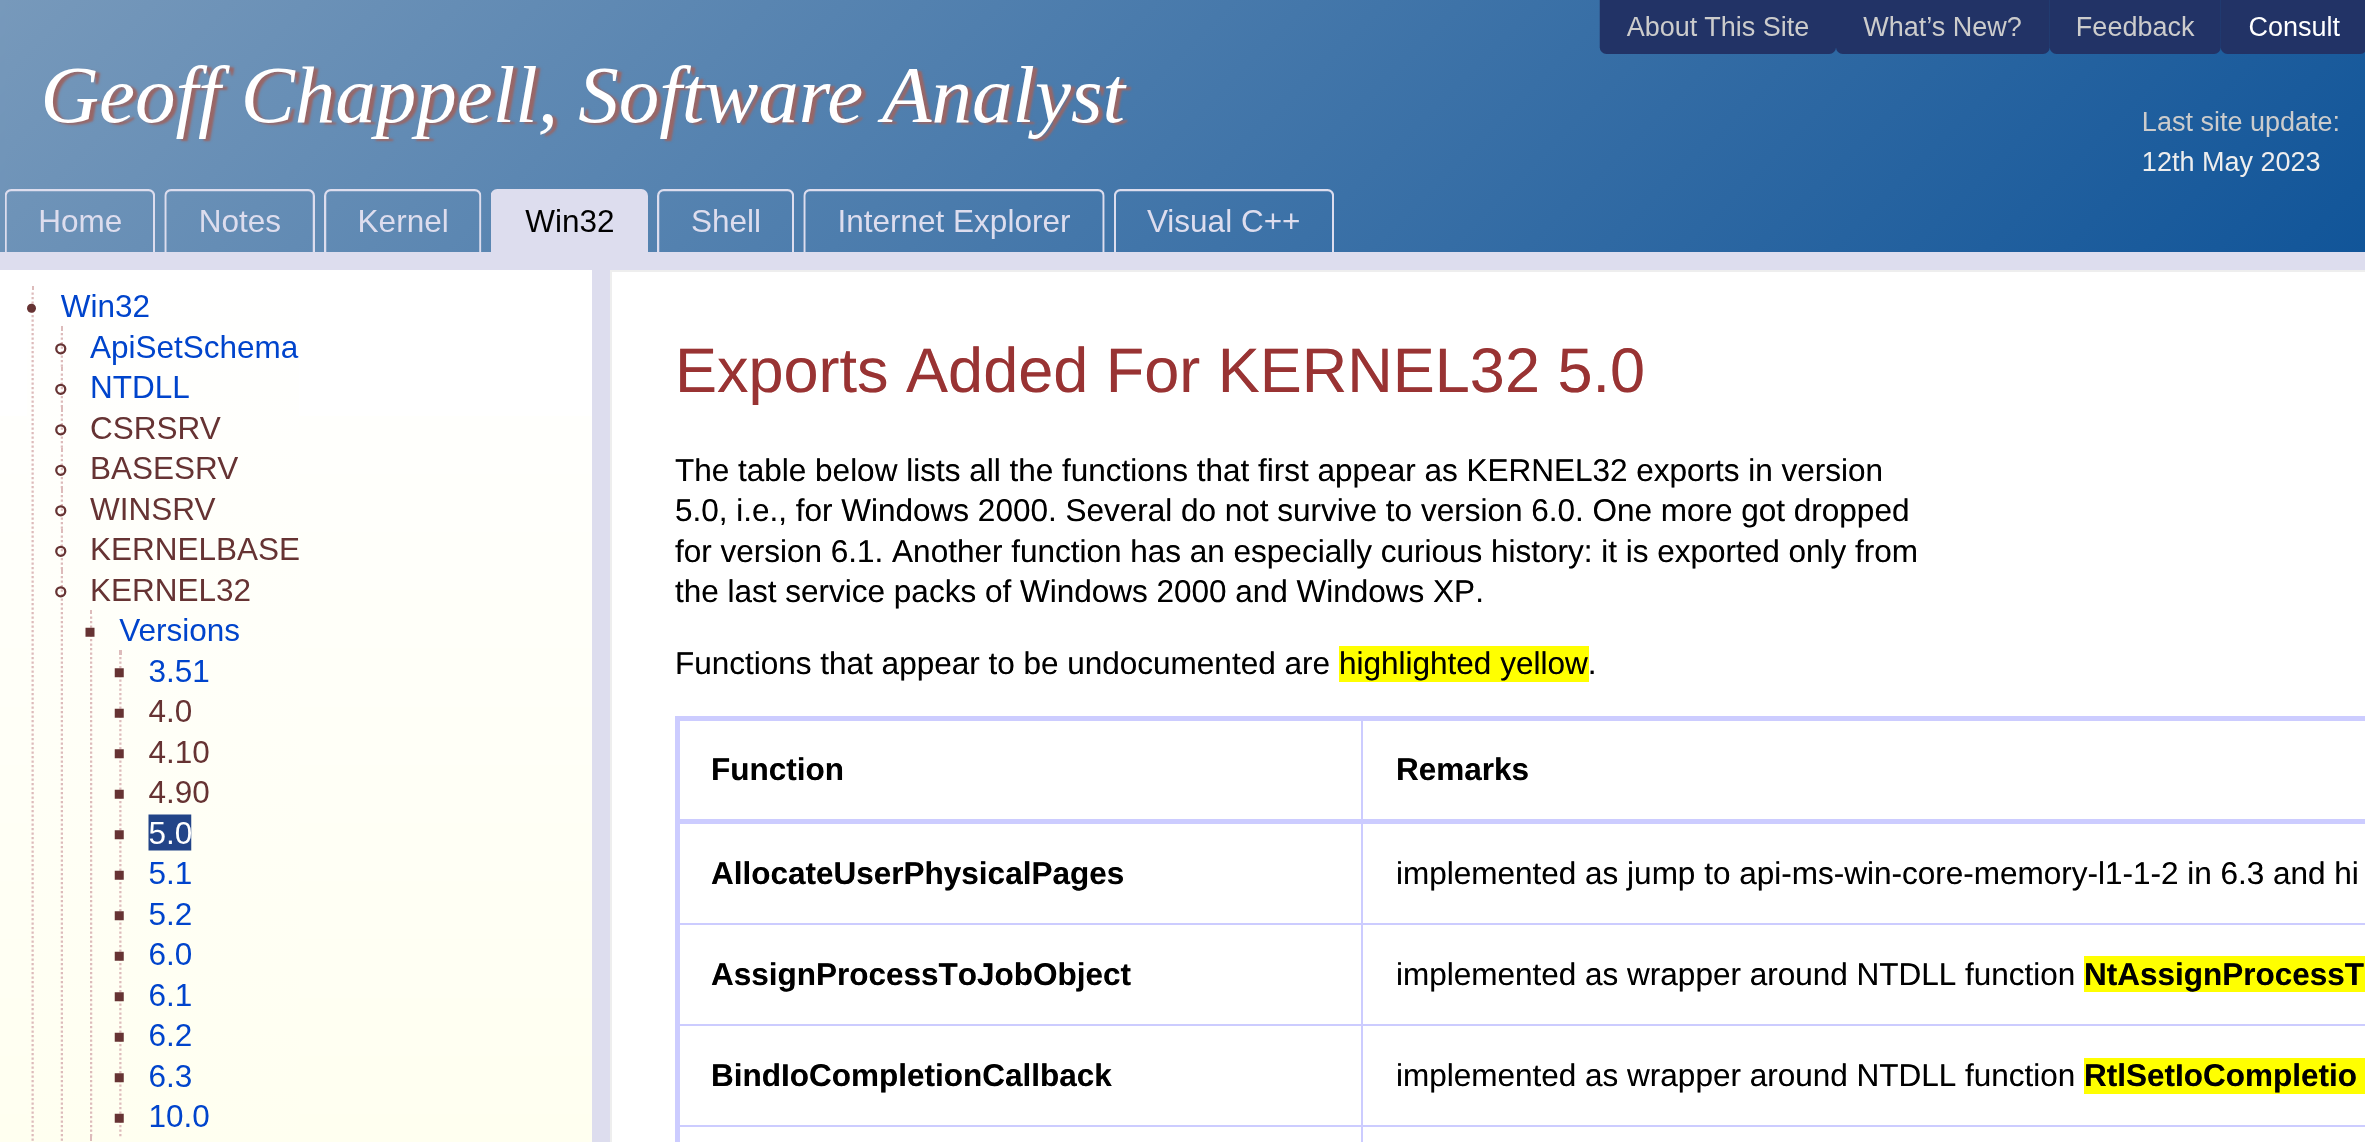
#include "include/core/SkBlurTypes.h"
#include "include/core/SkCanvas.h"
#include "include/core/SkData.h"
#include "include/core/SkFont.h"
#include "include/core/SkFontMgr.h"
#include "include/core/SkImage.h"
#include "include/core/SkMaskFilter.h"
#include "include/core/SkPaint.h"
#include "include/core/SkPathBuilder.h"
#include "include/core/SkTextBlob.h"
#include "include/effects/SkDashPathEffect.h"
#include "include/effects/SkGradientShader.h"
#include "include/utils/SkParsePath.h"

extern sk_sp<SkFontMgr> fontMgr;

void draw(SkCanvas* canvas) {
  SkPaint p;
  p.setAntiAlias(true);
  canvas->clear(SK_ColorWHITE);
  {
    const SkColor colors[] = {SkColorSetRGB(119, 153, 187), SkColorSetRGB(17, 85, 153)};
    const float stops[] = {0, 1};
    const SkPoint ends[] = {{529, -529}, {1838, 781}};
    p.setShader(SkGradientShader::MakeLinear(ends, colors, stops, 2, SkTileMode::kClamp));
    p.setAlpha(255);
  }
  canvas->drawRect(SkRect::MakeLTRB(0, 0, 5, 252), p);
  p.setShader(nullptr);
  p.setColor(SkColorSetRGB(221, 221, 238));
  canvas->drawRect(SkRect::MakeLTRB(0, 252, 2365, 270), p);
  canvas->drawImageRect(SkImages::DeferredFromEncodedData(SkData::MakeFromFileName("images/1.png")), SkRect::MakeLTRB(5, 0, 2365, 252), SkSamplingOptions());
  {
    const SkColor colors[] = {SK_ColorWHITE, SkColorSetRGB(255, 255, 240)};
    const float stops[] = {0, 1};
    const SkPoint ends[] = {{296, 270}, {296, 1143}};
    p.setShader(SkGradientShader::MakeLinear(ends, colors, stops, 2, SkTileMode::kClamp));
    p.setAlpha(255);
  }
  canvas->drawRect(SkRect::MakeLTRB(0, 416, 592, 1142), p);
  canvas->drawImageRect(SkImages::DeferredFromEncodedData(SkData::MakeFromFileName("images/2.png")), SkRect::MakeLTRB(27, 286, 299, 1141), SkSamplingOptions());
  p.setShader(nullptr);
  p.setColor(SkColorSetRGB(221, 221, 238));
  canvas->drawRect(SkRect::MakeLTRB(592, 270, 610, 1142), p);
  p.setStyle(SkPaint::kStroke_Style);
  p.setStrokeWidth(2);
  p.setColor(SkColorSetRGB(238, 238, 238));
  canvas->drawRect(SkRect::MakeLTRB(611, 271, 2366, 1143), p);
  p.setStyle(SkPaint::kFill_Style);
  p.setColor(SkColorSetRGB(255, 255, 0));
  canvas->drawRect(SkRect::MakeLTRB(1339, 646, 1589, 682), p);
  p.setColor(SkColorSetRGB(204, 204, 255));
  canvas->drawRect(SkRect::MakeLTRB(1361, 923, 2365, 925), p);
  canvas->drawRect(SkRect::MakeLTRB(1361, 1024, 2365, 1026), p);
  canvas->drawRect(SkRect::MakeLTRB(1361, 1125, 2365, 1127), p);
  canvas->drawRect(SkRect::MakeLTRB(1361, 1125, 1363, 1142), p);
  canvas->drawRect(SkRect::MakeLTRB(677, 1125, 1364, 1127), p);
  canvas->drawRect(SkRect::MakeLTRB(1361, 1024, 1363, 1127), p);
  canvas->drawRect(SkRect::MakeLTRB(677, 1024, 1364, 1026), p);
  canvas->drawRect(SkRect::MakeLTRB(1361, 923, 1363, 1026), p);
  canvas->drawRect(SkRect::MakeLTRB(677, 923, 1364, 925), p);
  canvas->drawRect(SkRect::MakeLTRB(1361, 716, 1363, 925), p);
  canvas->drawRect(SkRect::MakeLTRB(675, 716, 2365, 721), p);
  canvas->drawRect(SkRect::MakeLTRB(675, 716, 680, 1142), p);
  canvas->drawRect(SkRect::MakeLTRB(675, 819, 2365, 824), p);
  p.setColor(SkColorSetRGB(255, 255, 0));
  canvas->drawRect(SkRect::MakeLTRB(2084, 956, 2365, 992), p);
  canvas->drawRect(SkRect::MakeLTRB(2084, 1058, 2365, 1094), p);
  SkFont font1(fontMgr->matchFamilyStyle("Liberation Sans", SkFontStyle::Normal()), 63);
  font1.setSubpixel(true);
  p.setColor(SkColorSetRGB(153, 51, 51));
  canvas->drawString("Exports Added For KERNEL32 5.0", 675, 392, font1, p);
  SkFont font2(fontMgr->matchFamilyStyle("Liberation Sans", SkFontStyle::Normal()), 31.5f);
  font2.setSubpixel(true);
  p.setColor(SK_ColorBLACK);
  canvas->drawString("The table below lists all the functions that first appear as KERNEL32 exports in version", 675, 481, font2, p);
  canvas->drawString("5.0, i.e., for Windows 2000. Several do not survive to version 6.0. One more got dropped", 675, 521, font2, p);
  canvas->drawString("for version 6.1. Another function has an especially curious history: it is exported only from", 675, 562, font2, p);
  canvas->drawString("the last service packs of Windows 2000 and Windows XP.", 675, 602, font2, p);
  canvas->drawString("Functions that appear to be undocumented are", 675, 674, font2, p);
  canvas->drawString("highlighted yellow.", 1339, 674, font2, p);
  SkFont font3(fontMgr->matchFamilyStyle("Liberation Sans", SkFontStyle::Bold()), 31.5f);
  font3.setSubpixel(true);
  canvas->drawString("Function", 711, 780, font3, p);
  canvas->drawString("Remarks", 1396, 780, font3, p);
  canvas->drawString("AllocateUserPhysicalPages", 711, 884, font3, p);
  canvas->drawString("implemented as jump to api-ms-win-core-memory-l1-1-2 in 6.3 and hi", 1396, 884, font2, p);
  canvas->drawString("AssignProcessToJobObject", 711, 985, font3, p);
  canvas->drawString("implemented as wrapper around NTDLL function", 1396, 985, font2, p);
  canvas->drawString("NtAssignProcessT", 2084, 985, font3, p);
  canvas->drawString("BindIoCompletionCallback", 711, 1086, font3, p);
  canvas->drawString("implemented as wrapper around NTDLL function", 1396, 1086, font2, p);
  canvas->drawString("RtlSetIoCompletio", 2084, 1086, font3, p);
}
